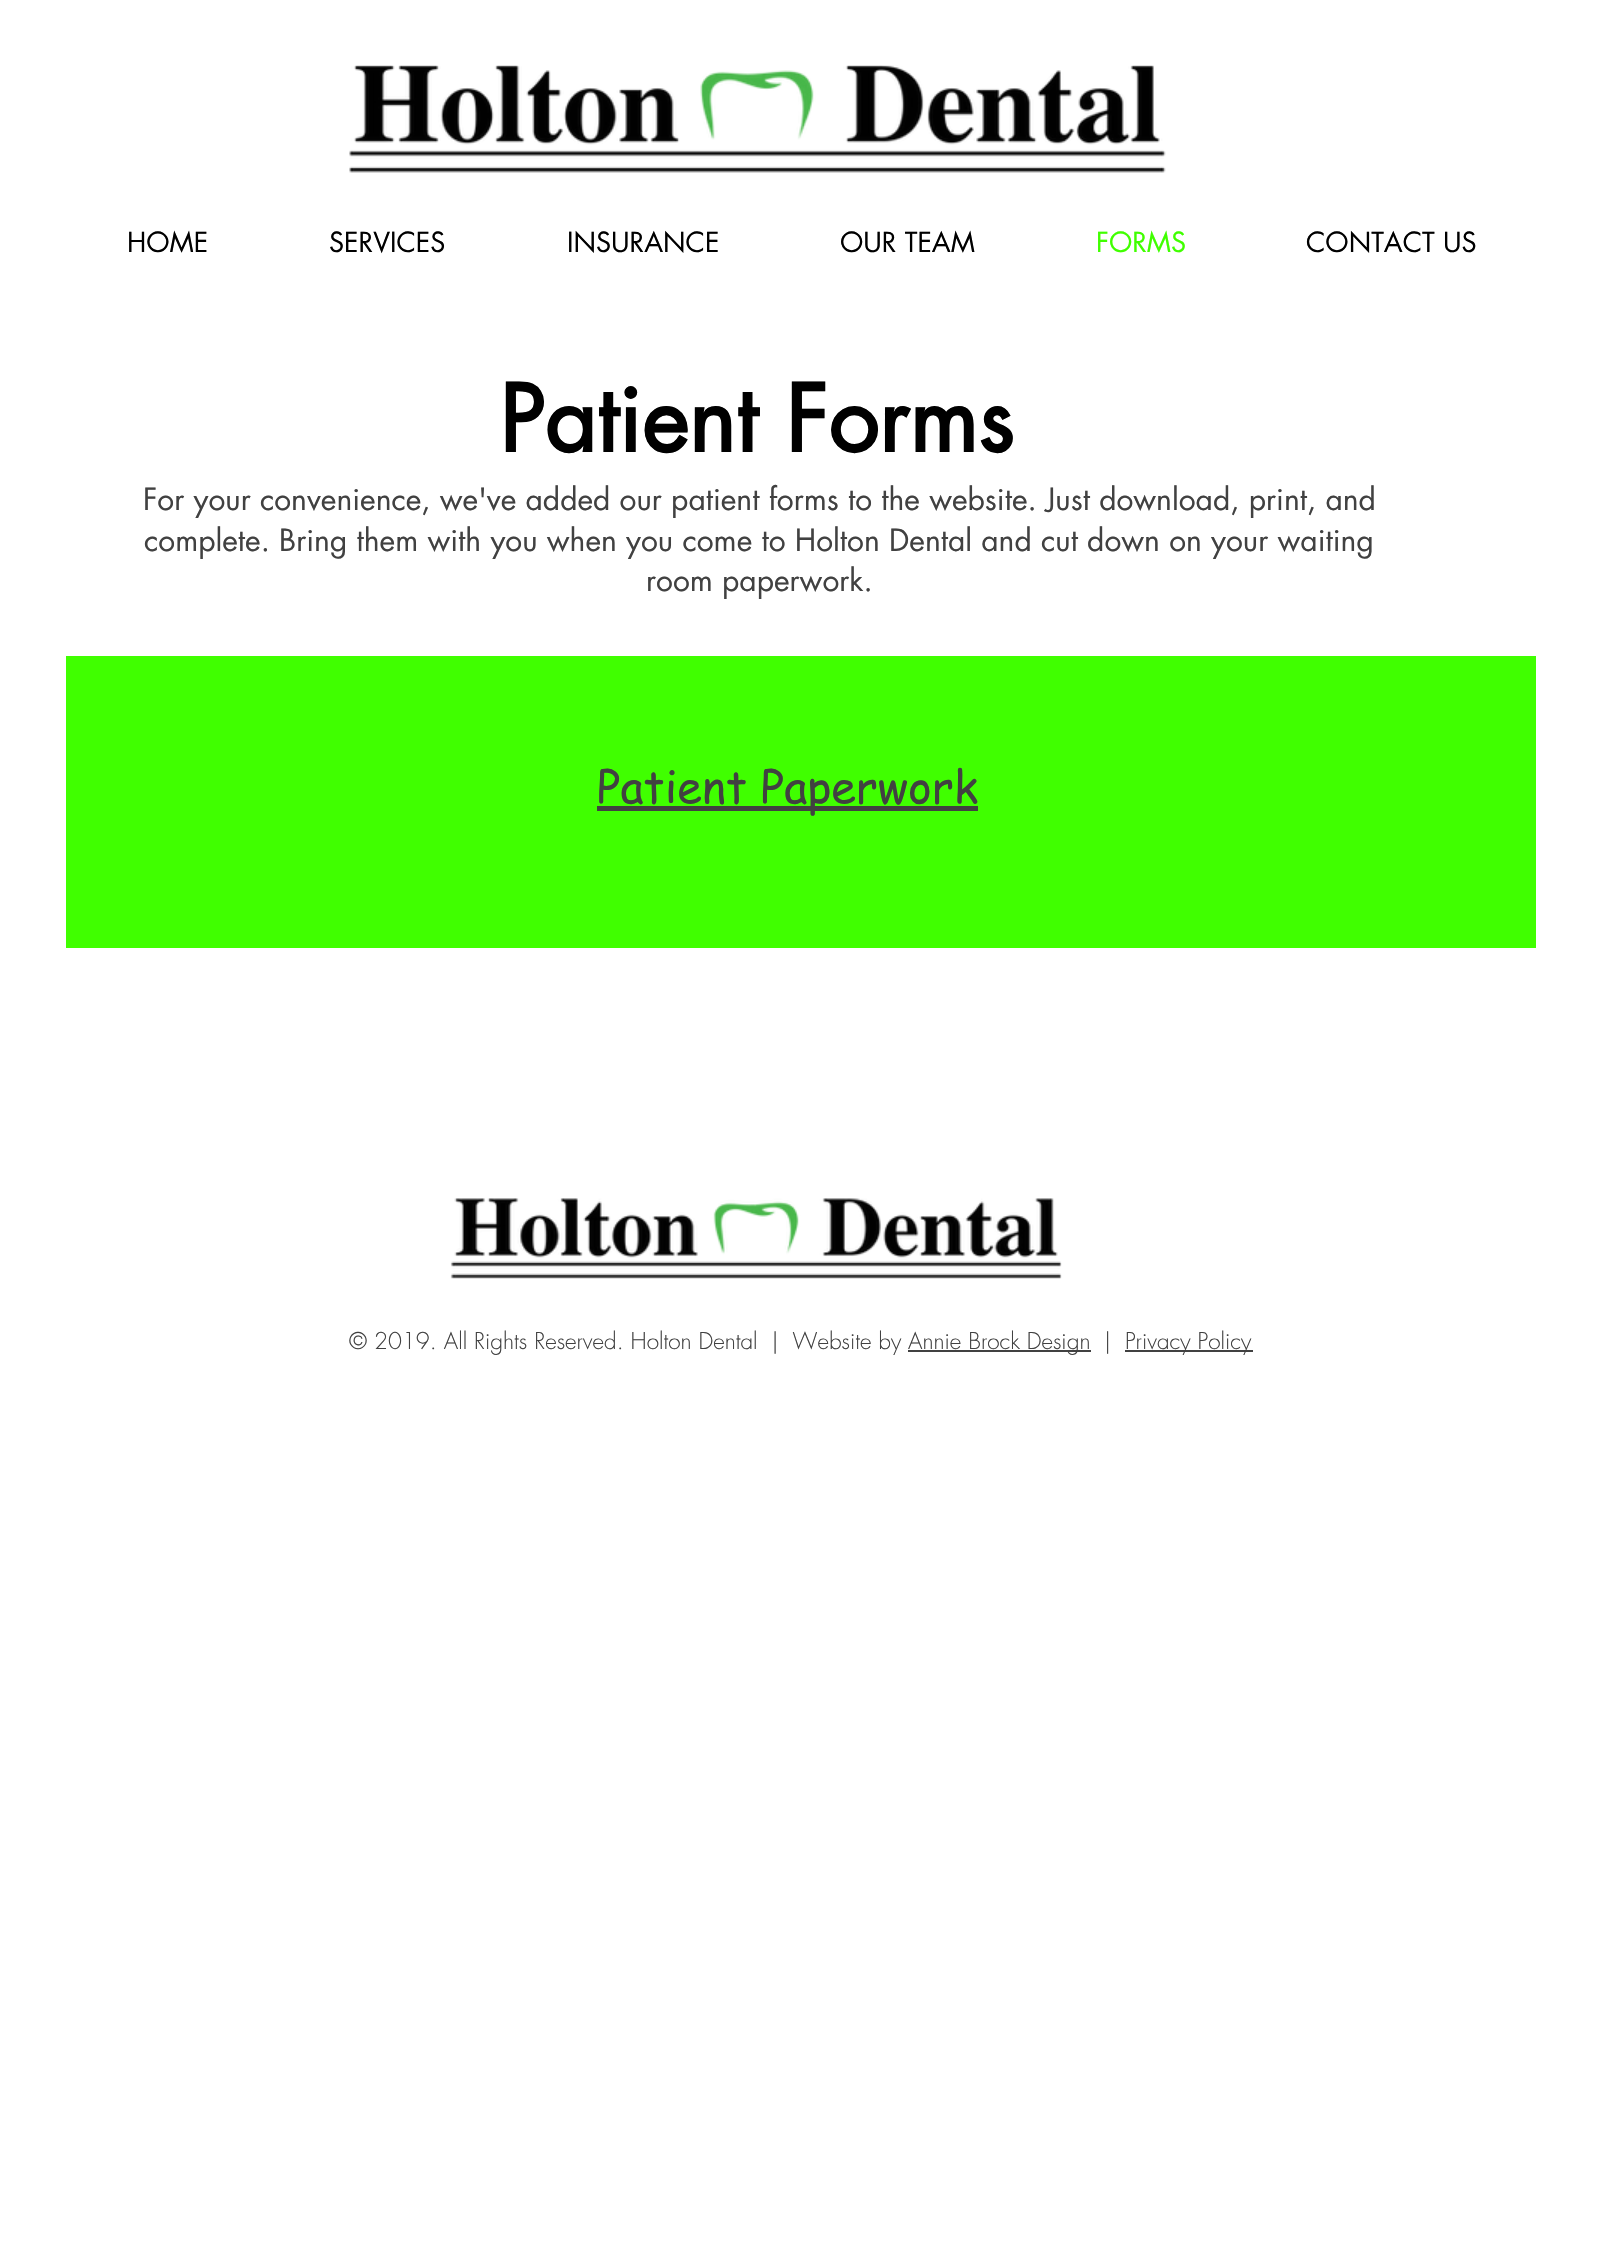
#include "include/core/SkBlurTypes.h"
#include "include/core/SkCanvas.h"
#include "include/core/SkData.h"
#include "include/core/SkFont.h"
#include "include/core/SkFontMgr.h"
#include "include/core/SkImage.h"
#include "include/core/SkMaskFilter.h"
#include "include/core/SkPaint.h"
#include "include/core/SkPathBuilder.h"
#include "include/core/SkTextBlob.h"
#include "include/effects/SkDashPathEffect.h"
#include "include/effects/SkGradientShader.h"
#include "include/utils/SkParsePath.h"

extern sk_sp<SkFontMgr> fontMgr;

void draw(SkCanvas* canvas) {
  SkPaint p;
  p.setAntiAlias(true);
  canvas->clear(SK_ColorWHITE);
  canvas->drawImageRect(SkImages::DeferredFromEncodedData(SkData::MakeFromFileName("images/1.png")), SkRect::MakeLTRB(349, 65, 1166, 173), SkSamplingOptions());
  p.setColor(SkColorSetRGB(64, 255, 0));
  canvas->drawRect(SkRect::MakeLTRB(66, 656, 1536, 948), p);
  p.setColor(SkColorSetRGB(65, 65, 65));
  canvas->drawRect(SkRect::MakeLTRB(597, 806, 978, 811), p);
  canvas->drawImageRect(SkImages::DeferredFromEncodedData(SkData::MakeFromFileName("images/2.png")), SkRect::MakeLTRB(450, 1198, 1062, 1279), SkSamplingOptions());
  canvas->drawRect(SkRect::MakeLTRB(908, 1350, 1091, 1352), p);
  canvas->drawRect(SkRect::MakeLTRB(1125, 1350, 1253, 1352), p);
  SkFont font1(fontMgr->matchFamilyStyle("futura", SkFontStyle::Normal()), 27);
  font1.setSubpixel(true);
  p.setColor(SK_ColorBLACK);
  canvas->drawString("HOME", 127, 252, font1, p);
  canvas->drawString("SERVICES", 329, 252, font1, p);
  canvas->drawString("INSURANCE", 567, 252, font1, p);
  canvas->drawString("OUR TEAM", 840, 252, font1, p);
  p.setColor(SkColorSetRGB(64, 255, 0));
  canvas->drawString("FORMS", 1096, 252, font1, p);
  p.setColor(SK_ColorBLACK);
  canvas->drawString("CONTACT US", 1306, 252, font1, p);
  SkFont font2(fontMgr->matchFamilyStyle("futura", SkFontStyle::Bold()), 90);
  font2.setSubpixel(true);
  canvas->drawString("Patient Forms", 499, 452, font2, p);
  SkFont font3(fontMgr->matchFamilyStyle("futura", SkFontStyle::Normal()), 30);
  font3.setSubpixel(true);
  p.setColor(SkColorSetRGB(65, 65, 65));
  canvas->drawString("For your convenience, we've added our patient forms to the website. Just download, print, and", 143, 510, font3, p);
  canvas->drawString("complete. Bring them with you when you come to Holton Dental and cut down on your waiting", 144, 551, font3, p);
  canvas->drawString("room paperwork.", 646, 591, font3, p);
  SkFont font4(fontMgr->matchFamilyStyle("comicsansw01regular", SkFontStyle::Normal()), 45);
  font4.setSubpixel(true);
  canvas->drawString("Patient Paperwork", 597, 803, font4, p);
  SkFont font5(fontMgr->matchFamilyStyle("futura", SkFontStyle(300, SkFontStyle::kNormal_Width, SkFontStyle::kUpright_Slant)), 22.5f);
  font5.setSubpixel(true);
  canvas->drawString("© 2019. All Rights Reserved. Holton Dental  |  Website by", 349, 1349, font5, p);
  canvas->drawString("Annie Brock Design", 908, 1349, font5, p);
  canvas->drawString("|", 1104, 1349, font5, p);
  canvas->drawString("Privacy Policy", 1125, 1349, font5, p);
}
